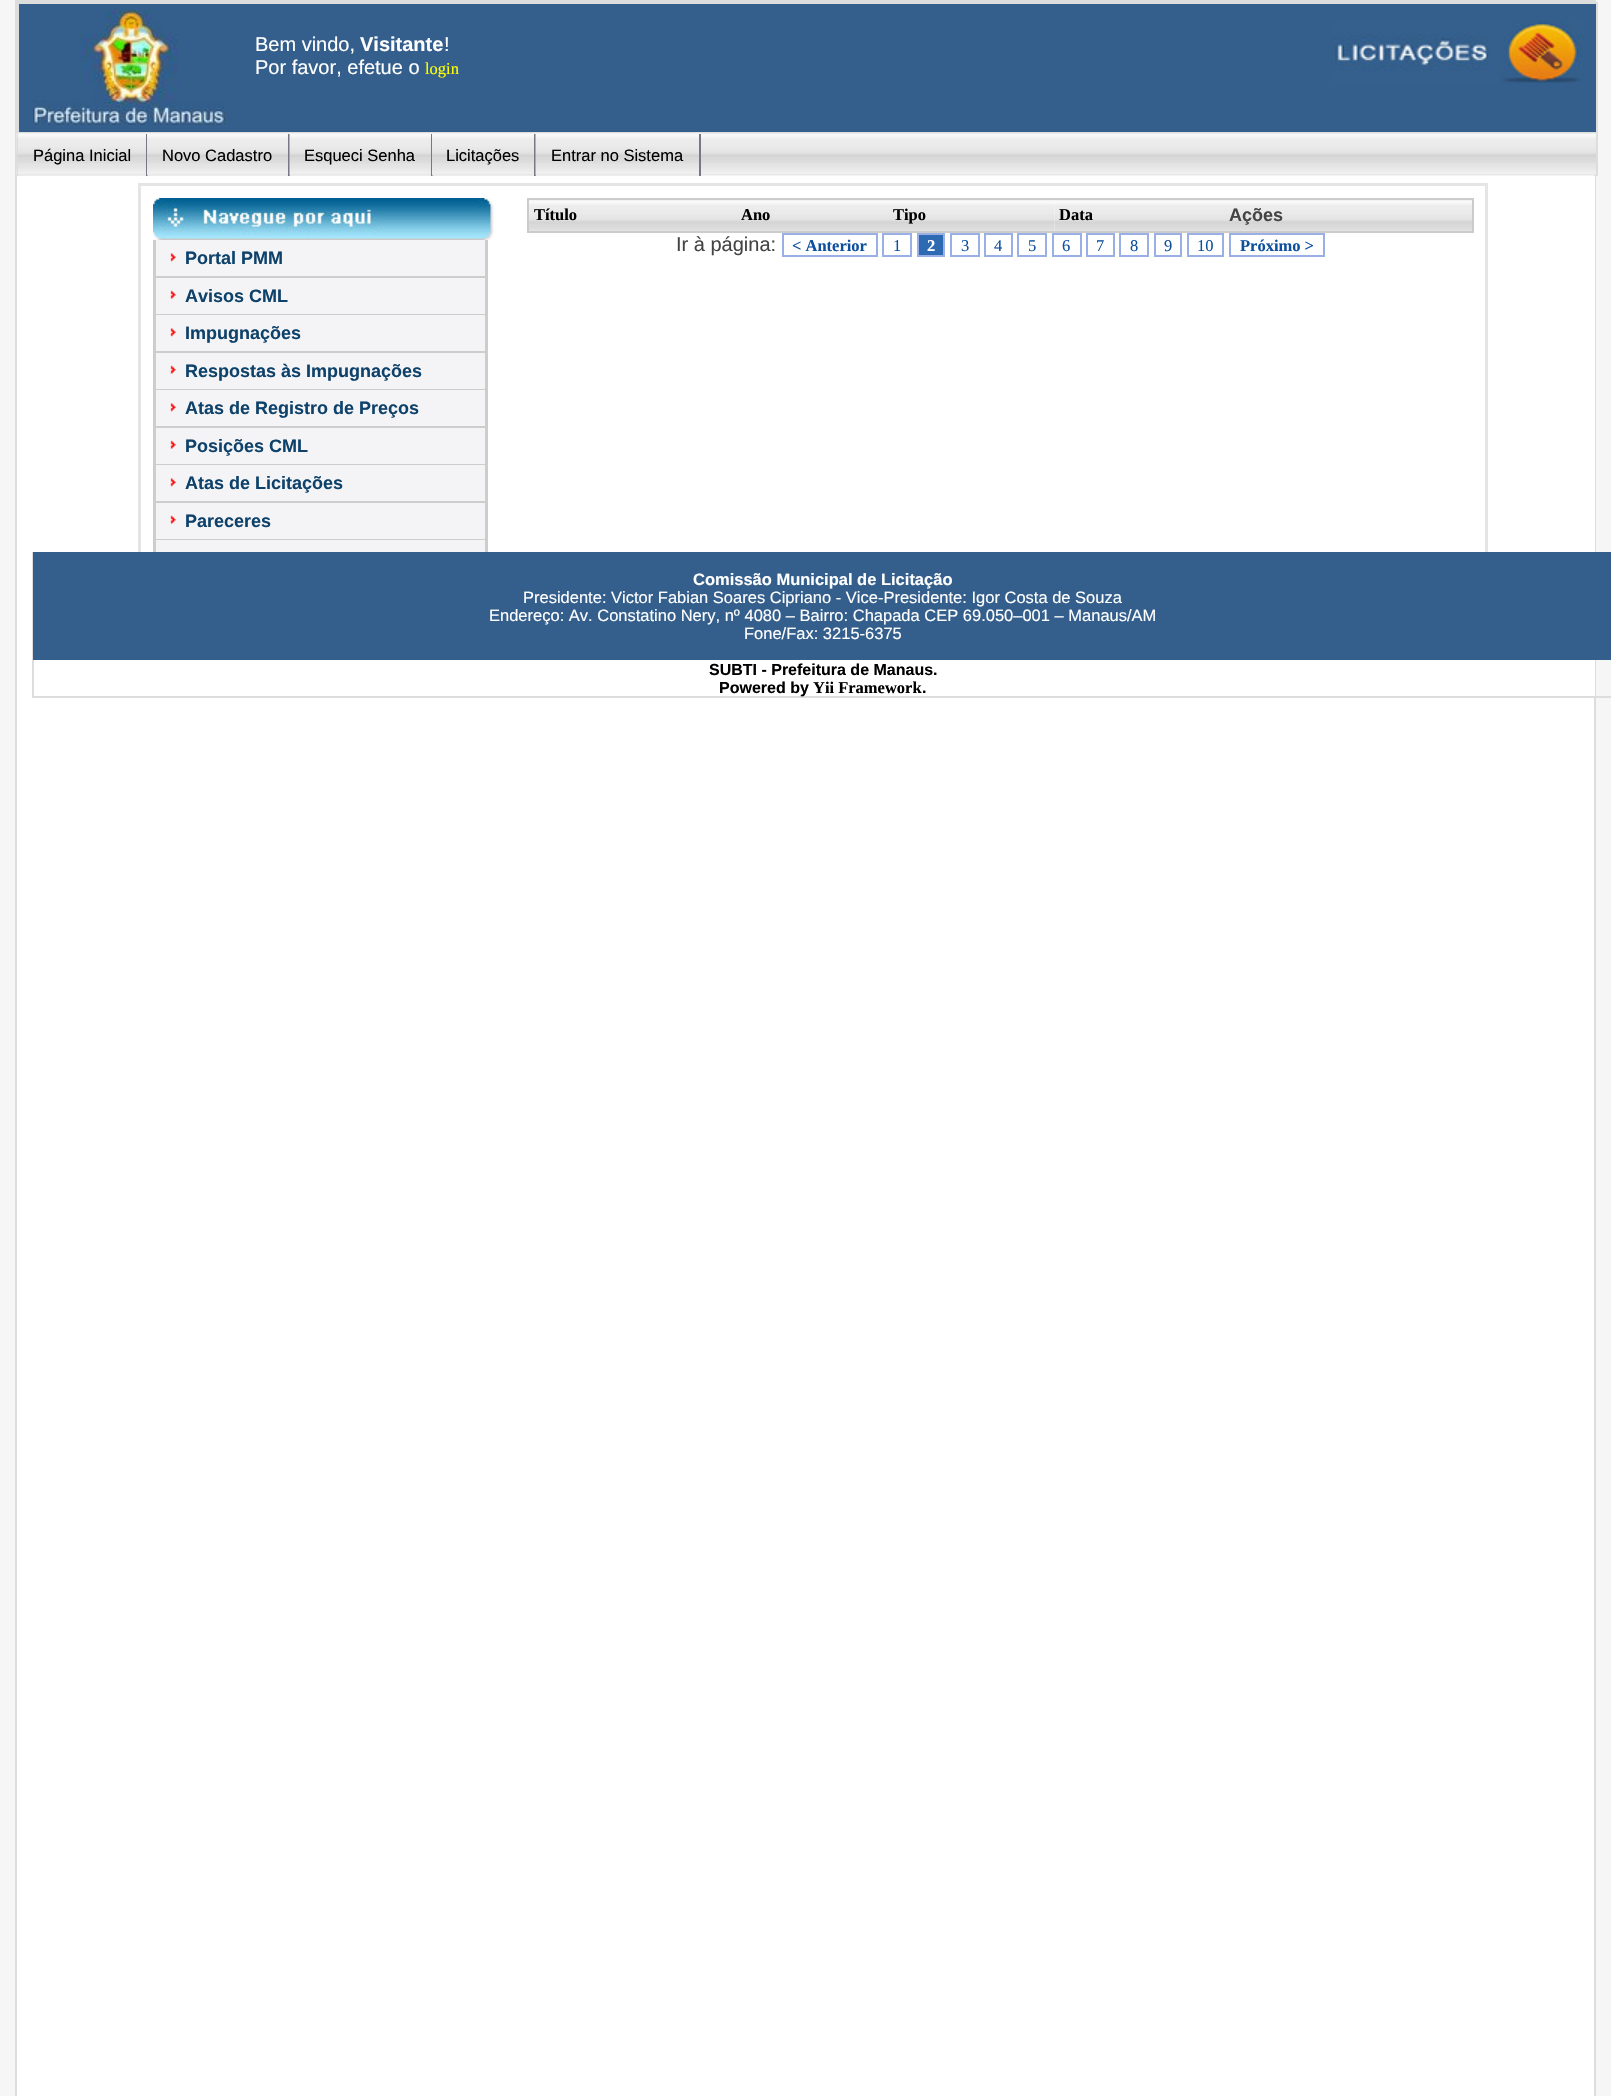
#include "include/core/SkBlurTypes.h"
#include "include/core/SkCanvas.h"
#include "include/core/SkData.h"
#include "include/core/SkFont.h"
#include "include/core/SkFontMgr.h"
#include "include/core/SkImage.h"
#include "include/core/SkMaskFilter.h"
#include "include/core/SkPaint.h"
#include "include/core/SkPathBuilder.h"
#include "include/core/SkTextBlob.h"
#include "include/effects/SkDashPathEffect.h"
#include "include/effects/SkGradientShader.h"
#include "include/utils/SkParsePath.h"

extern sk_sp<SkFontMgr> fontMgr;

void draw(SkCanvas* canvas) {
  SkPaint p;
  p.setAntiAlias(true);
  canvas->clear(SkColorSetRGB(246, 246, 246));
  p.setColor(SK_ColorWHITE);
  canvas->drawRect(SkRect::MakeLTRB(17, 175, 1594, 2096), p);
  p.setStyle(SkPaint::kStroke_Style);
  p.setStrokeWidth(2);
  p.setColor(SkColorSetRGB(221, 221, 221));
  canvas->drawRect(SkRect::MakeLTRB(16, 1, 1595, 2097), p);
  p.setStyle(SkPaint::kFill_Style);
  p.setColor(SkColorSetRGB(52, 95, 140));
  canvas->drawRect(SkRect::MakeLTRB(18, 3, 1597, 133), p);
  p.setStyle(SkPaint::kStroke_Style);
  p.setColor(SkColorSetRGB(221, 221, 221));
  canvas->drawRect(SkRect::MakeLTRB(18, 3, 1597, 133), p);
  canvas->drawImageRect(SkImages::DeferredFromEncodedData(SkData::MakeFromFileName("images/1.png")), SkRect::MakeLTRB(33, 10, 225, 125), SkSamplingOptions());
  canvas->drawImageRect(SkImages::DeferredFromEncodedData(SkData::MakeFromFileName("images/2.png")), SkRect::MakeLTRB(1332, 22, 1584, 83), SkSamplingOptions());
  canvas->drawImageRect(SkImages::DeferredFromEncodedData(SkData::MakeFromFileName("images/3.png")), SkRect::MakeLTRB(16, 133, 1598, 176), SkSamplingOptions());
  p.setStyle(SkPaint::kFill_Style);
  canvas->drawRect(SkRect::MakeLTRB(1596, 134, 1598, 176), p);
  canvas->drawRect(SkRect::MakeLTRB(17, 134, 19, 176), p);
  canvas->drawImageRect(SkImages::DeferredFromEncodedData(SkData::MakeFromFileName("images/4.png")), SkRect::MakeLTRB(18, 133, 147, 176), SkSamplingOptions());
  p.setColor(SkColorSetRGB(119, 119, 136));
  canvas->drawRect(SkRect::MakeLTRB(146, 134, 148, 176), p);
  canvas->drawImageRect(SkImages::DeferredFromEncodedData(SkData::MakeFromFileName("images/5.png")), SkRect::MakeLTRB(147, 133, 290, 176), SkSamplingOptions());
  canvas->drawRect(SkRect::MakeLTRB(288, 134, 290, 176), p);
  canvas->drawImageRect(SkImages::DeferredFromEncodedData(SkData::MakeFromFileName("images/6.png")), SkRect::MakeLTRB(289, 133, 432, 176), SkSamplingOptions());
  canvas->drawRect(SkRect::MakeLTRB(431, 134, 433, 176), p);
  canvas->drawImageRect(SkImages::DeferredFromEncodedData(SkData::MakeFromFileName("images/7.png")), SkRect::MakeLTRB(432, 133, 536, 176), SkSamplingOptions());
  canvas->drawRect(SkRect::MakeLTRB(534, 134, 536, 176), p);
  canvas->drawImageRect(SkImages::DeferredFromEncodedData(SkData::MakeFromFileName("images/8.png")), SkRect::MakeLTRB(535, 133, 701, 176), SkSamplingOptions());
  canvas->drawRect(SkRect::MakeLTRB(699, 134, 701, 176), p);
  p.setColor(SK_ColorWHITE);
  canvas->drawRect(SkRect::MakeLTRB(1594, 176, 1595, 698), p);
  p.setStyle(SkPaint::kStroke_Style);
  p.setStrokeWidth(3);
  p.setColor(SkColorSetRGB(229, 229, 230));
  canvas->drawRect(SkRect::MakeLTRB(139.5f, 184.5f, 1486.5f, 628.5f), p);
  p.setStyle(SkPaint::kFill_Style);
  p.setColor(SkColorSetRGB(204, 204, 204));
  canvas->drawRect(SkRect::MakeLTRB(527, 198, 1473, 200), p);
  canvas->drawRect(SkRect::MakeLTRB(1472, 198, 1474, 233), p);
  canvas->drawRect(SkRect::MakeLTRB(527, 231, 1473, 233), p);
  canvas->drawRect(SkRect::MakeLTRB(527, 198, 529, 233), p);
  canvas->drawImageRect(SkImages::DeferredFromEncodedData(SkData::MakeFromFileName("images/9.png")), SkRect::MakeLTRB(529, 200, 735, 231), SkSamplingOptions());
  canvas->drawImageRect(SkImages::DeferredFromEncodedData(SkData::MakeFromFileName("images/10.png")), SkRect::MakeLTRB(735, 200, 888, 231), SkSamplingOptions());
  canvas->drawImageRect(SkImages::DeferredFromEncodedData(SkData::MakeFromFileName("images/11.png")), SkRect::MakeLTRB(888, 200, 1055, 231), SkSamplingOptions());
  canvas->drawImageRect(SkImages::DeferredFromEncodedData(SkData::MakeFromFileName("images/12.png")), SkRect::MakeLTRB(1054, 200, 1224, 231), SkSamplingOptions());
  canvas->drawImageRect(SkImages::DeferredFromEncodedData(SkData::MakeFromFileName("images/13.png")), SkRect::MakeLTRB(1224, 200, 1472, 231), SkSamplingOptions());
  p.setStyle(SkPaint::kStroke_Style);
  p.setStrokeWidth(2);
  p.setColor(SkColorSetRGB(154, 175, 229));
  canvas->drawRect(SkRect::MakeLTRB(783, 234, 877, 256), p);
  canvas->drawRect(SkRect::MakeLTRB(883, 234, 911, 256), p);
  p.setStyle(SkPaint::kFill_Style);
  p.setColor(SkColorSetRGB(46, 106, 177));
  canvas->drawRect(SkRect::MakeLTRB(918, 234, 944, 256), p);
  p.setStyle(SkPaint::kStroke_Style);
  p.setColor(SkColorSetRGB(154, 175, 229));
  canvas->drawRect(SkRect::MakeLTRB(918, 234, 944, 256), p);
  canvas->drawRect(SkRect::MakeLTRB(951, 234, 979, 256), p);
  canvas->drawRect(SkRect::MakeLTRB(985, 234, 1012, 256), p);
  canvas->drawRect(SkRect::MakeLTRB(1018, 234, 1046, 256), p);
  canvas->drawRect(SkRect::MakeLTRB(1053, 234, 1081, 256), p);
  canvas->drawRect(SkRect::MakeLTRB(1087, 234, 1114, 256), p);
  canvas->drawRect(SkRect::MakeLTRB(1120, 234, 1148, 256), p);
  canvas->drawRect(SkRect::MakeLTRB(1155, 234, 1181, 256), p);
  canvas->drawRect(SkRect::MakeLTRB(1188, 234, 1223, 256), p);
  canvas->drawRect(SkRect::MakeLTRB(1230, 234, 1324, 256), p);
  canvas->drawImageRect(SkImages::DeferredFromEncodedData(SkData::MakeFromFileName("images/14.png")), SkRect::MakeLTRB(153, 198, 494, 240), SkSamplingOptions());
  p.setStyle(SkPaint::kFill_Style);
  p.setColor(SkColorSetRGB(206, 205, 205));
  canvas->drawRect(SkRect::MakeLTRB(153, 276, 488, 278), p);
  p.setColor(SkColorSetRGB(244, 244, 246));
  canvas->drawRect(SkRect::MakeLTRB(156, 240, 485, 276), p);
  p.setColor(SkColorSetRGB(206, 205, 205));
  canvas->drawRect(SkRect::MakeLTRB(485, 240, 488, 276), p);
  canvas->drawRect(SkRect::MakeLTRB(153, 240, 156, 276), p);
  canvas->drawImageRect(SkImages::DeferredFromEncodedData(SkData::MakeFromFileName("images/15.png")), SkRect::MakeLTRB(170, 253, 176, 262), SkSamplingOptions());
  canvas->drawRect(SkRect::MakeLTRB(153, 314, 488, 315), p);
  p.setColor(SkColorSetRGB(244, 244, 246));
  canvas->drawRect(SkRect::MakeLTRB(156, 278, 485, 314), p);
  p.setColor(SkColorSetRGB(206, 205, 205));
  canvas->drawRect(SkRect::MakeLTRB(485, 278, 488, 314), p);
  canvas->drawRect(SkRect::MakeLTRB(153, 278, 156, 314), p);
  canvas->drawImageRect(SkImages::DeferredFromEncodedData(SkData::MakeFromFileName("images/16.png")), SkRect::MakeLTRB(170, 290, 176, 299), SkSamplingOptions());
  canvas->drawRect(SkRect::MakeLTRB(153, 351, 488, 353), p);
  p.setColor(SkColorSetRGB(244, 244, 246));
  canvas->drawRect(SkRect::MakeLTRB(156, 315, 485, 351), p);
  p.setColor(SkColorSetRGB(206, 205, 205));
  canvas->drawRect(SkRect::MakeLTRB(485, 315, 488, 351), p);
  canvas->drawRect(SkRect::MakeLTRB(153, 315, 156, 351), p);
  canvas->drawImageRect(SkImages::DeferredFromEncodedData(SkData::MakeFromFileName("images/15.png")), SkRect::MakeLTRB(170, 328, 176, 337), SkSamplingOptions());
  canvas->drawRect(SkRect::MakeLTRB(153, 389, 488, 390), p);
  p.setColor(SkColorSetRGB(244, 244, 246));
  canvas->drawRect(SkRect::MakeLTRB(156, 353, 485, 389), p);
  p.setColor(SkColorSetRGB(206, 205, 205));
  canvas->drawRect(SkRect::MakeLTRB(485, 353, 488, 389), p);
  canvas->drawRect(SkRect::MakeLTRB(153, 353, 156, 389), p);
  canvas->drawImageRect(SkImages::DeferredFromEncodedData(SkData::MakeFromFileName("images/16.png")), SkRect::MakeLTRB(170, 365, 176, 374), SkSamplingOptions());
  canvas->drawRect(SkRect::MakeLTRB(153, 426, 488, 428), p);
  p.setColor(SkColorSetRGB(244, 244, 246));
  canvas->drawRect(SkRect::MakeLTRB(156, 390, 485, 426), p);
  p.setColor(SkColorSetRGB(206, 205, 205));
  canvas->drawRect(SkRect::MakeLTRB(485, 390, 488, 426), p);
  canvas->drawRect(SkRect::MakeLTRB(153, 390, 156, 426), p);
  canvas->drawImageRect(SkImages::DeferredFromEncodedData(SkData::MakeFromFileName("images/15.png")), SkRect::MakeLTRB(170, 403, 176, 412), SkSamplingOptions());
  canvas->drawRect(SkRect::MakeLTRB(153, 464, 488, 465), p);
  p.setColor(SkColorSetRGB(244, 244, 246));
  canvas->drawRect(SkRect::MakeLTRB(156, 428, 485, 464), p);
  p.setColor(SkColorSetRGB(206, 205, 205));
  canvas->drawRect(SkRect::MakeLTRB(485, 428, 488, 464), p);
  canvas->drawRect(SkRect::MakeLTRB(153, 428, 156, 464), p);
  canvas->drawImageRect(SkImages::DeferredFromEncodedData(SkData::MakeFromFileName("images/16.png")), SkRect::MakeLTRB(170, 440, 176, 449), SkSamplingOptions());
  canvas->drawRect(SkRect::MakeLTRB(153, 501, 488, 503), p);
  p.setColor(SkColorSetRGB(244, 244, 246));
  canvas->drawRect(SkRect::MakeLTRB(156, 465, 485, 501), p);
  p.setColor(SkColorSetRGB(206, 205, 205));
  canvas->drawRect(SkRect::MakeLTRB(485, 465, 488, 501), p);
  canvas->drawRect(SkRect::MakeLTRB(153, 465, 156, 501), p);
  canvas->drawImageRect(SkImages::DeferredFromEncodedData(SkData::MakeFromFileName("images/15.png")), SkRect::MakeLTRB(170, 478, 176, 487), SkSamplingOptions());
  canvas->drawRect(SkRect::MakeLTRB(153, 539, 488, 540), p);
  p.setColor(SkColorSetRGB(244, 244, 246));
  canvas->drawRect(SkRect::MakeLTRB(156, 503, 485, 539), p);
  p.setColor(SkColorSetRGB(206, 205, 205));
  canvas->drawRect(SkRect::MakeLTRB(485, 503, 488, 539), p);
  canvas->drawRect(SkRect::MakeLTRB(153, 503, 156, 539), p);
  canvas->drawImageRect(SkImages::DeferredFromEncodedData(SkData::MakeFromFileName("images/16.png")), SkRect::MakeLTRB(170, 515, 176, 524), SkSamplingOptions());
  p.setColor(SkColorSetRGB(244, 244, 246));
  canvas->drawRect(SkRect::MakeLTRB(156, 540, 485, 552), p);
  p.setColor(SkColorSetRGB(206, 205, 205));
  canvas->drawRect(SkRect::MakeLTRB(485, 540, 488, 552), p);
  canvas->drawRect(SkRect::MakeLTRB(153, 540, 156, 552), p);
  p.setColor(SkColorSetRGB(221, 221, 221));
  canvas->drawRect(SkRect::MakeLTRB(32, 696, 1611, 698), p);
  canvas->drawRect(SkRect::MakeLTRB(32, 552, 34, 698), p);
  p.setColor(SkColorSetRGB(52, 95, 140));
  canvas->drawRect(SkRect::MakeLTRB(33, 552, 1611, 660), p);
  SkFont font1(fontMgr->matchFamilyStyle("Liberation Sans", SkFontStyle::Normal()), 20);
  font1.setSubpixel(true);
  p.setColor(SK_ColorWHITE);
  canvas->drawString("Bem vindo,", 255, 51, font1, p);
  SkFont font2(fontMgr->matchFamilyStyle("Liberation Sans", SkFontStyle::Bold()), 20);
  font2.setSubpixel(true);
  canvas->drawString("Visitante", 360, 51, font2, p);
  canvas->drawString("!", 444, 51, font1, p);
  canvas->drawString("Por favor, efetue o", 255, 74, font1, p);
  SkFont font3(fontMgr->matchFamilyStyle("Liberation Serif", SkFontStyle::Normal()), 16.5f);
  font3.setSubpixel(true);
  p.setColor(SkColorSetRGB(255, 255, 0));
  canvas->drawString("login", 425, 74, font3, p);
  SkFont font4(fontMgr->matchFamilyStyle("Liberation Sans", SkFontStyle::Normal()), 16.5f);
  font4.setSubpixel(true);
  p.setColor(SK_ColorBLACK);
  canvas->drawString("Página Inicial", 33, 161, font4, p);
  canvas->drawString("Novo Cadastro", 162, 161, font4, p);
  canvas->drawString("Esqueci Senha", 304, 161, font4, p);
  canvas->drawString("Licitações", 446, 161, font4, p);
  canvas->drawString("Entrar no Sistema", 551, 161, font4, p);
  SkFont font5(fontMgr->matchFamilyStyle("Liberation Serif", SkFontStyle::Bold()), 16.5f);
  font5.setSubpixel(true);
  canvas->drawString("Título", 534, 220, font5, p);
  canvas->drawString("Ano", 741, 220, font5, p);
  canvas->drawString("Tipo", 893, 220, font5, p);
  canvas->drawString("Data", 1059, 220, font5, p);
  SkFont font6(fontMgr->matchFamilyStyle("Liberation Sans", SkFontStyle::Bold()), 18);
  font6.setSubpixel(true);
  p.setColor(SkColorSetRGB(68, 68, 68));
  canvas->drawString("Ações", 1229, 221, font6, p);
  canvas->drawString("Ir à página:", 676, 251, font1, p);
  p.setColor(SkColorSetRGB(14, 80, 158));
  canvas->drawString("< Anterior", 792, 251, font5, p);
  canvas->drawString("1", 893, 251, font3, p);
  p.setColor(SK_ColorWHITE);
  canvas->drawString("2", 927, 251, font5, p);
  p.setColor(SkColorSetRGB(14, 80, 158));
  canvas->drawString("3", 961, 251, font3, p);
  canvas->drawString("4", 994, 251, font3, p);
  canvas->drawString("5", 1028, 251, font3, p);
  canvas->drawString("6", 1062, 251, font3, p);
  canvas->drawString("7", 1096, 251, font3, p);
  canvas->drawString("8", 1130, 251, font3, p);
  canvas->drawString("9", 1164, 251, font3, p);
  canvas->drawString("10", 1197, 251, font3, p);
  canvas->drawString("Próximo >", 1240, 251, font5, p);
  p.setColor(SkColorSetRGB(14, 66, 106));
  canvas->drawString("Portal PMM", 185, 264, font6, p);
  canvas->drawString("Avisos CML", 185, 302, font6, p);
  canvas->drawString("Impugnações", 185, 339, font6, p);
  canvas->drawString("Respostas às Impugnações", 185, 377, font6, p);
  canvas->drawString("Atas de Registro de Preços", 185, 414, font6, p);
  canvas->drawString("Posições CML", 185, 452, font6, p);
  canvas->drawString("Atas de Licitações", 185, 489, font6, p);
  canvas->drawString("Pareceres", 185, 527, font6, p);
  SkFont font7(fontMgr->matchFamilyStyle("Liberation Sans", SkFontStyle::Bold()), 16.5f);
  font7.setSubpixel(true);
  p.setColor(SK_ColorWHITE);
  canvas->drawString("Comissão Municipal de Licitação", 693, 585, font7, p);
  canvas->drawString("Presidente: Victor Fabian Soares Cipriano - Vice-Presidente: Igor Costa de Souza", 523, 603, font4, p);
  canvas->drawString("Endereço: Av. Constatino Nery, nº 4080 – Bairro: Chapada CEP 69.050–001 – Manaus/AM", 489, 621, font4, p);
  canvas->drawString("Fone/Fax: 3215-6375", 744, 639, font4, p);
  SkFont font8(fontMgr->matchFamilyStyle("Liberation Sans", SkFontStyle::Bold()), 16);
  font8.setSubpixel(true);
  p.setColor(SK_ColorBLACK);
  canvas->drawString("SUBTI - Prefeitura de Manaus.", 709, 675, font8, p);
  canvas->drawString("Powered by", 719, 693, font8, p);
  canvas->drawString("Yii Framework", 813, 693, font5, p);
  canvas->drawString(".", 922, 693, font8, p);
}
